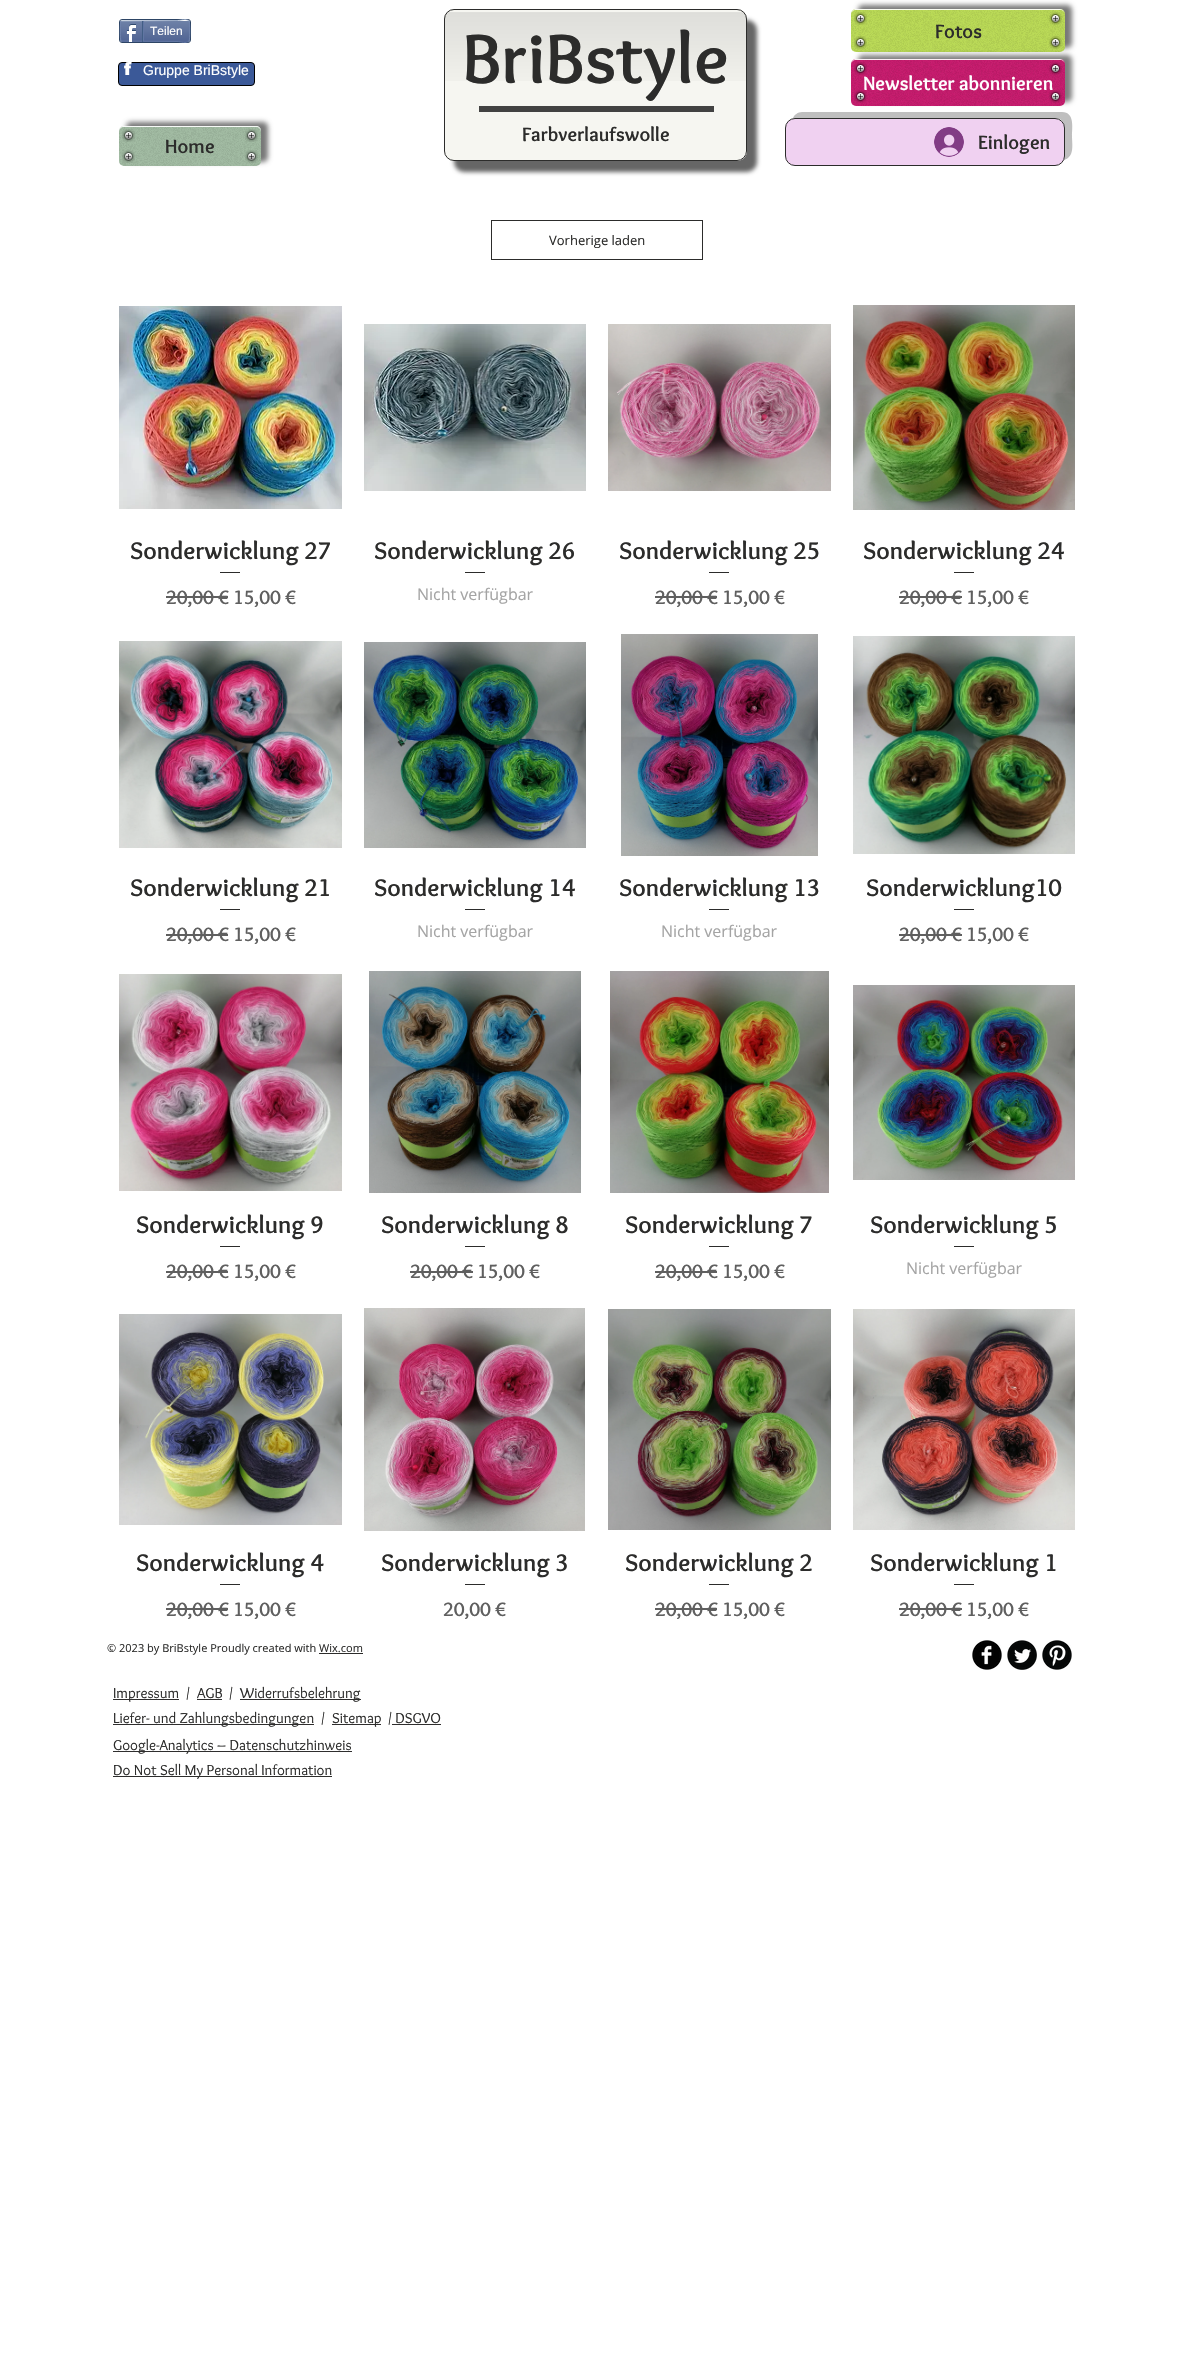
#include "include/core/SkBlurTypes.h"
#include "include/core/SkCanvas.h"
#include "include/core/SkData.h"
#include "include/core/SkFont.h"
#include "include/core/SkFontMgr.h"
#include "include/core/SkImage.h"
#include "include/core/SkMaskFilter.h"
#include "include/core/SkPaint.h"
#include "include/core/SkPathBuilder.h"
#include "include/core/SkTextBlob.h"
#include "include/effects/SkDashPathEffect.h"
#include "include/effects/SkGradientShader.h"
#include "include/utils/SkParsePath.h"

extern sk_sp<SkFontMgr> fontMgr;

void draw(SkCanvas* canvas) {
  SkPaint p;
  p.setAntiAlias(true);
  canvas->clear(SK_ColorWHITE);
  p.setStyle(SkPaint::kStroke_Style);
  p.setStrokeWidth(1);
  p.setColor(SkColorSetRGB(45, 69, 101));
  canvas->drawRoundRect(SkRect::MakeLTRB(119.5f, 19.5f, 190.5f, 42.5f), 2.5f, 2.5f, p);
  canvas->drawImageRect(SkImages::DeferredFromEncodedData(SkData::MakeFromFileName("images/1.png")), SkRect::MakeLTRB(120, 21, 190, 42), SkSamplingOptions());
  p.setColor(SkColorSetRGB(154, 171, 198));
  canvas->drawPath(SkPathBuilder().moveTo(121, 21).lineTo(177, 20.5f).cubicTo(181, 20.5f, 186, 18, 189, 21).detach(), p);
  p.setColor(SkColorSetRGB(111, 131, 173));
  canvas->drawPath(SkPathBuilder().moveTo(189, 21).cubicTo(190, 21.5f, 190, 40.5f, 189, 41).detach(), p);
  p.setColor(SkColorSetRGB(97, 118, 163));
  canvas->drawPath(SkPathBuilder().moveTo(189, 41).cubicTo(186, 44, 181, 41.5f, 177, 41.5f).lineTo(121, 41).detach(), p);
  p.setColor(SkColorSetRGB(111, 131, 173));
  canvas->drawPath(SkPathBuilder().moveTo(121, 41).cubicTo(120, 40.5f, 120, 21.5f, 121, 21).detach(), p);
  canvas->drawImageRect(SkImages::DeferredFromEncodedData(SkData::MakeFromFileName("images/2.png")), SkRect::MakeLTRB(126, 24, 136, 42), SkSamplingOptions());
  p.setStyle(SkPaint::kFill_Style);
  p.setColor(SkColorSetRGB(66, 94, 133));
  canvas->drawRect(SkRect::MakeLTRB(142, 21, 143, 42), p);
  p.setColor(SkColorSetRGB(97, 118, 163));
  canvas->drawRect(SkRect::MakeLTRB(143, 21, 144, 41), p);
  canvas->save();
  canvas->clipPath(SkPathBuilder(SkPathFillType::kEvenOdd).moveTo(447, 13).lineTo(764, 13).lineTo(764, 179).lineTo(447, 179).close().moveTo(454, 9).lineTo(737, 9).cubicTo(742.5f, 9, 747, 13.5f, 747, 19).lineTo(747, 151).cubicTo(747, 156.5f, 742.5f, 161, 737, 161).lineTo(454, 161).cubicTo(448.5f, 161, 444, 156.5f, 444, 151).lineTo(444, 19).cubicTo(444, 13.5f, 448.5f, 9, 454, 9).close().detach(), true);
  p.setColor(SkColorSetARGB(153, 0, 0, 0));
  p.setMaskFilter(SkMaskFilter::MakeBlur(kNormal_SkBlurStyle, 2));
  canvas->drawRoundRect(SkRect::MakeLTRB(454, 20, 757, 172), 10, 10, p);
  p.setMaskFilter(nullptr);
  canvas->restore();
  p.setColor(SkColorSetARGB(179, 242, 242, 235));
  canvas->drawRoundRect(SkRect::MakeLTRB(444, 9, 747, 161), 10, 10, p);
  canvas->drawImageRect(SkImages::DeferredFromEncodedData(SkData::MakeFromFileName("images/3.png")), SkRect::MakeLTRB(444, 12, 747, 81), SkSamplingOptions());
  p.setStyle(SkPaint::kStroke_Style);
  p.setColor(SkColorSetRGB(44, 44, 43));
  canvas->drawRoundRect(SkRect::MakeLTRB(444.5f, 9.5f, 746.5f, 160.5f), 9.5f, 9.5f, p);
  p.setStyle(SkPaint::kFill_Style);
  p.setColor(SkColorSetRGB(66, 66, 66));
  canvas->drawRect(SkRect::MakeLTRB(479, 106, 714, 112), p);
  p.setColor(SkColorSetARGB(135, 0, 0, 0));
  p.setMaskFilter(SkMaskFilter::MakeBlur(kNormal_SkBlurStyle, 2.5f));
  canvas->drawRoundRect(SkRect::MakeLTRB(858, 5, 1072, 48), 5, 5, p);
  p.setMaskFilter(nullptr);
  p.setColor(SkColorSetRGB(186, 218, 85));
  canvas->drawRoundRect(SkRect::MakeLTRB(851, 9, 1065, 52), 5, 5, p);
  canvas->drawImageRect(SkImages::DeferredFromEncodedData(SkData::MakeFromFileName("images/4.png")), SkRect::MakeLTRB(851, 9, 1065, 52), SkSamplingOptions());
  p.setColor(SkColorSetARGB(235, 255, 255, 255));
  canvas->drawPath(SkPathBuilder().moveTo(856, 10).lineTo(1060, 10).cubicTo(1063, 10, 1065, 12, 1065, 15).cubicTo(1065, 12, 1063, 9, 1060, 9).lineTo(855, 9).cubicTo(852, 10, 851, 12, 851, 15).cubicTo(851, 12, 853, 10, 856, 10).close().detach(), p);
  canvas->drawImageRect(SkImages::DeferredFromEncodedData(SkData::MakeFromFileName("images/5.png")), SkRect::MakeLTRB(854, 12, 867, 25), SkSamplingOptions());
  canvas->drawImageRect(SkImages::DeferredFromEncodedData(SkData::MakeFromFileName("images/6.png")), SkRect::MakeLTRB(1049, 12, 1062, 25), SkSamplingOptions());
  canvas->drawImageRect(SkImages::DeferredFromEncodedData(SkData::MakeFromFileName("images/7.png")), SkRect::MakeLTRB(854, 36, 867, 49), SkSamplingOptions());
  canvas->drawImageRect(SkImages::DeferredFromEncodedData(SkData::MakeFromFileName("images/8.png")), SkRect::MakeLTRB(1049, 36, 1062, 49), SkSamplingOptions());
  p.setColor(SkColorSetRGB(59, 89, 152));
  canvas->drawRoundRect(SkRect::MakeLTRB(118.5f, 62.5f, 254.5f, 85.5f), 3.5f, 3.5f, p);
  p.setStyle(SkPaint::kStroke_Style);
  p.setColor(SK_ColorBLACK);
  canvas->drawRoundRect(SkRect::MakeLTRB(118.5f, 62.5f, 254.5f, 85.5f), 3.5f, 3.5f, p);
  p.setStyle(SkPaint::kFill_Style);
  p.setColor(SkColorSetARGB(128, 0, 0, 0));
  p.setMaskFilter(SkMaskFilter::MakeBlur(kNormal_SkBlurStyle, 2.5f));
  canvas->drawRoundRect(SkRect::MakeLTRB(858, 55, 1072, 102), 5, 5, p);
  p.setMaskFilter(nullptr);
  p.setColor(SkColorSetRGB(199, 26, 109));
  canvas->drawRoundRect(SkRect::MakeLTRB(851, 59, 1065, 106), 5, 5, p);
  canvas->drawImageRect(SkImages::DeferredFromEncodedData(SkData::MakeFromFileName("images/9.png")), SkRect::MakeLTRB(851, 59, 1065, 106), SkSamplingOptions());
  p.setColor(SkColorSetARGB(235, 255, 255, 255));
  canvas->drawPath(SkPathBuilder().moveTo(856, 60).lineTo(1060, 60).cubicTo(1063, 60, 1065, 62, 1065, 65).cubicTo(1065, 62, 1063, 59, 1060, 59).lineTo(855, 59).cubicTo(852, 60, 851, 62, 851, 65).cubicTo(851, 62, 853, 60, 856, 60).close().detach(), p);
  canvas->drawImageRect(SkImages::DeferredFromEncodedData(SkData::MakeFromFileName("images/10.png")), SkRect::MakeLTRB(854, 62, 867, 75), SkSamplingOptions());
  canvas->drawImageRect(SkImages::DeferredFromEncodedData(SkData::MakeFromFileName("images/11.png")), SkRect::MakeLTRB(1049, 62, 1062, 75), SkSamplingOptions());
  canvas->drawImageRect(SkImages::DeferredFromEncodedData(SkData::MakeFromFileName("images/12.png")), SkRect::MakeLTRB(854, 90, 867, 103), SkSamplingOptions());
  canvas->drawImageRect(SkImages::DeferredFromEncodedData(SkData::MakeFromFileName("images/13.png")), SkRect::MakeLTRB(1049, 90, 1062, 103), SkSamplingOptions());
  p.setColor(SkColorSetARGB(135, 0, 0, 0));
  p.setMaskFilter(SkMaskFilter::MakeBlur(kNormal_SkBlurStyle, 2.5f));
  canvas->drawRoundRect(SkRect::MakeLTRB(126, 122, 268, 162), 5, 5, p);
  p.setMaskFilter(nullptr);
  p.setColor(SkColorSetRGB(161, 187, 162));
  canvas->drawRoundRect(SkRect::MakeLTRB(119, 126, 261, 166), 5, 5, p);
  canvas->drawImageRect(SkImages::DeferredFromEncodedData(SkData::MakeFromFileName("images/14.png")), SkRect::MakeLTRB(119, 126, 261, 166), SkSamplingOptions());
  p.setColor(SkColorSetARGB(235, 255, 255, 255));
  canvas->drawPath(SkPathBuilder().moveTo(124, 127).lineTo(256, 127).cubicTo(259, 127, 261, 129, 261, 132).lineTo(261, 131).cubicTo(261, 128, 259, 126, 256, 126).lineTo(124, 126).cubicTo(121, 126, 119, 128, 119, 131).lineTo(119, 132).cubicTo(119, 129, 121, 127, 124, 127).close().detach(), p);
  canvas->drawImageRect(SkImages::DeferredFromEncodedData(SkData::MakeFromFileName("images/15.png")), SkRect::MakeLTRB(122, 129, 135, 142), SkSamplingOptions());
  canvas->drawImageRect(SkImages::DeferredFromEncodedData(SkData::MakeFromFileName("images/16.png")), SkRect::MakeLTRB(245, 129, 258, 142), SkSamplingOptions());
  canvas->drawImageRect(SkImages::DeferredFromEncodedData(SkData::MakeFromFileName("images/17.png")), SkRect::MakeLTRB(122, 150, 135, 163), SkSamplingOptions());
  canvas->drawImageRect(SkImages::DeferredFromEncodedData(SkData::MakeFromFileName("images/18.png")), SkRect::MakeLTRB(245, 150, 258, 163), SkSamplingOptions());
  p.setColor(SkColorSetRGB(191, 191, 191));
  canvas->drawPath(SkPathBuilder().moveTo(802, 112).cubicTo(798, 112, 794, 115, 793, 118).lineTo(1055, 118).cubicTo(1066, 118, 1065, 130, 1065, 137).lineTo(1065, 151).cubicTo(1065, 154, 1065, 157, 1064, 160).cubicTo(1075, 157, 1072, 144, 1072, 136).cubicTo(1072, 128, 1075, 112, 1062, 112).close().detach(), p);
  p.setColor(SkColorSetARGB(191, 235, 193, 236));
  canvas->drawRoundRect(SkRect::MakeLTRB(785.5f, 118.5f, 1064.5f, 165.5f), 9.5f, 9.5f, p);
  p.setStyle(SkPaint::kStroke_Style);
  p.setColor(SkColorSetRGB(44, 44, 43));
  canvas->drawRoundRect(SkRect::MakeLTRB(785.5f, 118.5f, 1064.5f, 165.5f), 9.5f, 9.5f, p);
  canvas->drawImageRect(SkImages::DeferredFromEncodedData(SkData::MakeFromFileName("images/19.png")), SkRect::MakeLTRB(934, 127, 964, 157), SkSamplingOptions());
  canvas->drawRect(SkRect::MakeLTRB(491.5f, 220.5f, 702.5f, 259.5f), p);
  canvas->drawImageRect(SkImages::DeferredFromEncodedData(SkData::MakeFromFileName("images/20.png")), SkRect::MakeLTRB(119, 306, 342, 509), SkSamplingOptions());
  p.setStyle(SkPaint::kFill_Style);
  canvas->drawRect(SkRect::MakeLTRB(220, 572, 240, 573), p);
  p.setColor(SkColorSetRGB(95, 95, 95));
  canvas->drawRect(SkRect::MakeLTRB(166, 596, 228, 598), p);
  canvas->drawImageRect(SkImages::DeferredFromEncodedData(SkData::MakeFromFileName("images/21.png")), SkRect::MakeLTRB(364, 324, 586, 491), SkSamplingOptions());
  p.setColor(SkColorSetRGB(44, 44, 43));
  canvas->drawRect(SkRect::MakeLTRB(465, 572, 485, 573), p);
  canvas->drawImageRect(SkImages::DeferredFromEncodedData(SkData::MakeFromFileName("images/22.png")), SkRect::MakeLTRB(608, 324, 831, 491), SkSamplingOptions());
  canvas->drawRect(SkRect::MakeLTRB(709, 572, 729, 573), p);
  p.setColor(SkColorSetRGB(95, 95, 95));
  canvas->drawRect(SkRect::MakeLTRB(655, 596, 717, 598), p);
  canvas->drawImageRect(SkImages::DeferredFromEncodedData(SkData::MakeFromFileName("images/23.png")), SkRect::MakeLTRB(853, 305, 1075, 510), SkSamplingOptions());
  p.setColor(SkColorSetRGB(44, 44, 43));
  canvas->drawRect(SkRect::MakeLTRB(954, 572, 974, 573), p);
  p.setColor(SkColorSetRGB(95, 95, 95));
  canvas->drawRect(SkRect::MakeLTRB(899, 596, 962, 598), p);
  canvas->drawImageRect(SkImages::DeferredFromEncodedData(SkData::MakeFromFileName("images/24.png")), SkRect::MakeLTRB(119, 641, 342, 848), SkSamplingOptions());
  p.setColor(SkColorSetRGB(44, 44, 43));
  canvas->drawRect(SkRect::MakeLTRB(220, 909, 240, 910), p);
  p.setColor(SkColorSetRGB(95, 95, 95));
  canvas->drawRect(SkRect::MakeLTRB(166, 934, 228, 936), p);
  canvas->drawImageRect(SkImages::DeferredFromEncodedData(SkData::MakeFromFileName("images/25.png")), SkRect::MakeLTRB(364, 642, 586, 848), SkSamplingOptions());
  p.setColor(SkColorSetRGB(44, 44, 43));
  canvas->drawRect(SkRect::MakeLTRB(465, 909, 485, 910), p);
  canvas->drawImageRect(SkImages::DeferredFromEncodedData(SkData::MakeFromFileName("images/26.png")), SkRect::MakeLTRB(621, 634, 818, 856), SkSamplingOptions());
  canvas->drawRect(SkRect::MakeLTRB(709, 909, 729, 910), p);
  canvas->drawImageRect(SkImages::DeferredFromEncodedData(SkData::MakeFromFileName("images/27.png")), SkRect::MakeLTRB(853, 636, 1075, 854), SkSamplingOptions());
  canvas->drawRect(SkRect::MakeLTRB(954, 909, 974, 910), p);
  p.setColor(SkColorSetRGB(95, 95, 95));
  canvas->drawRect(SkRect::MakeLTRB(899, 934, 962, 936), p);
  canvas->drawImageRect(SkImages::DeferredFromEncodedData(SkData::MakeFromFileName("images/28.png")), SkRect::MakeLTRB(119, 974, 342, 1191), SkSamplingOptions());
  p.setColor(SkColorSetRGB(44, 44, 43));
  canvas->drawRect(SkRect::MakeLTRB(220, 1246, 240, 1247), p);
  p.setColor(SkColorSetRGB(95, 95, 95));
  canvas->drawRect(SkRect::MakeLTRB(166, 1271, 228, 1273), p);
  canvas->drawImageRect(SkImages::DeferredFromEncodedData(SkData::MakeFromFileName("images/29.png")), SkRect::MakeLTRB(369, 971, 581, 1193), SkSamplingOptions());
  p.setColor(SkColorSetRGB(44, 44, 43));
  canvas->drawRect(SkRect::MakeLTRB(465, 1246, 485, 1247), p);
  p.setColor(SkColorSetRGB(95, 95, 95));
  canvas->drawRect(SkRect::MakeLTRB(410, 1271, 473, 1273), p);
  canvas->drawImageRect(SkImages::DeferredFromEncodedData(SkData::MakeFromFileName("images/30.png")), SkRect::MakeLTRB(610, 971, 829, 1193), SkSamplingOptions());
  p.setColor(SkColorSetRGB(44, 44, 43));
  canvas->drawRect(SkRect::MakeLTRB(709, 1246, 729, 1247), p);
  p.setColor(SkColorSetRGB(95, 95, 95));
  canvas->drawRect(SkRect::MakeLTRB(655, 1271, 717, 1273), p);
  canvas->drawImageRect(SkImages::DeferredFromEncodedData(SkData::MakeFromFileName("images/31.png")), SkRect::MakeLTRB(853, 985, 1075, 1180), SkSamplingOptions());
  p.setColor(SkColorSetRGB(44, 44, 43));
  canvas->drawRect(SkRect::MakeLTRB(954, 1246, 974, 1247), p);
  canvas->drawImageRect(SkImages::DeferredFromEncodedData(SkData::MakeFromFileName("images/32.png")), SkRect::MakeLTRB(119, 1314, 342, 1525), SkSamplingOptions());
  canvas->drawRect(SkRect::MakeLTRB(220, 1584, 240, 1585), p);
  p.setColor(SkColorSetRGB(95, 95, 95));
  canvas->drawRect(SkRect::MakeLTRB(166, 1608, 228, 1610), p);
  canvas->drawImageRect(SkImages::DeferredFromEncodedData(SkData::MakeFromFileName("images/33.png")), SkRect::MakeLTRB(364, 1308, 585, 1531), SkSamplingOptions());
  p.setColor(SkColorSetRGB(44, 44, 43));
  canvas->drawRect(SkRect::MakeLTRB(465, 1584, 485, 1585), p);
  canvas->drawImageRect(SkImages::DeferredFromEncodedData(SkData::MakeFromFileName("images/34.png")), SkRect::MakeLTRB(608, 1309, 831, 1530), SkSamplingOptions());
  canvas->drawRect(SkRect::MakeLTRB(709, 1584, 729, 1585), p);
  p.setColor(SkColorSetRGB(95, 95, 95));
  canvas->drawRect(SkRect::MakeLTRB(655, 1608, 717, 1610), p);
  canvas->drawImageRect(SkImages::DeferredFromEncodedData(SkData::MakeFromFileName("images/35.png")), SkRect::MakeLTRB(853, 1309, 1075, 1530), SkSamplingOptions());
  p.setColor(SkColorSetRGB(44, 44, 43));
  canvas->drawRect(SkRect::MakeLTRB(954, 1584, 974, 1585), p);
  p.setColor(SkColorSetRGB(95, 95, 95));
  canvas->drawRect(SkRect::MakeLTRB(899, 1608, 962, 1610), p);
  p.setColor(SkColorSetRGB(44, 44, 43));
  canvas->drawRect(SkRect::MakeLTRB(319, 1653, 363, 1654), p);
  canvas->drawImageRect(SkImages::DeferredFromEncodedData(SkData::MakeFromFileName("images/36.png")), SkRect::MakeLTRB(972, 1640, 1002, 1670), SkSamplingOptions());
  canvas->drawImageRect(SkImages::DeferredFromEncodedData(SkData::MakeFromFileName("images/37.png")), SkRect::MakeLTRB(1007, 1640, 1037, 1670), SkSamplingOptions());
  canvas->drawImageRect(SkImages::DeferredFromEncodedData(SkData::MakeFromFileName("images/38.png")), SkRect::MakeLTRB(1042, 1640, 1072, 1670), SkSamplingOptions());
  p.setColor(SkColorSetRGB(47, 46, 46));
  canvas->drawRect(SkRect::MakeLTRB(113, 1699, 179, 1700), p);
  canvas->drawRect(SkRect::MakeLTRB(197, 1699, 222, 1700), p);
  canvas->drawRect(SkRect::MakeLTRB(240, 1699, 361, 1700), p);
  canvas->drawRect(SkRect::MakeLTRB(113, 1724, 314, 1725), p);
  canvas->drawRect(SkRect::MakeLTRB(332, 1724, 381, 1725), p);
  canvas->drawRect(SkRect::MakeLTRB(113, 1751, 352, 1752), p);
  p.setColor(SkColorSetRGB(44, 44, 43));
  canvas->drawRect(SkRect::MakeLTRB(113, 1776, 332, 1777), p);
  SkFont font1(fontMgr->matchFamilyStyle("Liberation Sans", SkFontStyle::Normal()), 12);
  font1.setSubpixel(true);
  p.setColor(SK_ColorWHITE);
  canvas->drawString("Teilen", 150, 35, font1, p);
  SkFont font2(fontMgr->matchFamilyStyle("Overlock", SkFontStyle::Bold()), 72);
  font2.setSubpixel(true);
  p.setColor(SkColorSetRGB(44, 44, 43));
  canvas->drawString("BriBstyle", 462, 83, font2, p);
  SkFont font3(fontMgr->matchFamilyStyle("Overlock", SkFontStyle::Bold()), 20);
  font3.setSubpixel(true);
  canvas->drawString("Farbverlaufswolle", 522, 141, font3, p);
  canvas->drawString("Fotos", 935, 38, font3, p);
  SkFont font4(fontMgr->matchFamilyStyle("arial", SkFontStyle(900, SkFontStyle::kNormal_Width, SkFontStyle::kUpright_Slant)), 18);
  font4.setSubpixel(true);
  p.setColor(SK_ColorWHITE);
  canvas->drawString("f", 124, 75, font4, p);
  SkFont font5(fontMgr->matchFamilyStyle("Liberation Sans", SkFontStyle::Normal()), 14);
  font5.setSubpixel(true);
  canvas->drawString("Gruppe BriBstyle", 143, 75, font5, p);
  canvas->drawString("Newsletter abonnieren", 863, 90, font3, p);
  p.setColor(SkColorSetRGB(44, 44, 43));
  canvas->drawString("Home", 165, 153, font3, p);
  canvas->drawString("Einlogen", 978, 149, font3, p);
  SkFont font6(fontMgr->matchFamilyStyle("Open Sans", SkFontStyle::Normal()), 13);
  font6.setSubpixel(true);
  canvas->drawString("Vorherige laden", 549, 245, font6, p);
  SkFont font7(fontMgr->matchFamilyStyle("Overlock", SkFontStyle::Bold()), 25);
  font7.setSubpixel(true);
  canvas->drawString("Sonderwicklung 27", 130, 559, font7, p);
  p.setColor(SkColorSetRGB(95, 95, 95));
  canvas->drawString("20,00 € 15,00 €", 166, 604, font3, p);
  p.setColor(SkColorSetRGB(44, 44, 43));
  canvas->drawString("Sonderwicklung 26", 374, 559, font7, p);
  SkFont font8(fontMgr->matchFamilyStyle("Open Sans", SkFontStyle::Normal()), 16);
  font8.setSubpixel(true);
  p.setColor(SkColorSetRGB(164, 164, 164));
  canvas->drawString("Nicht verfügbar", 417, 600, font8, p);
  p.setColor(SkColorSetRGB(44, 44, 43));
  canvas->drawString("Sonderwicklung 25", 619, 559, font7, p);
  p.setColor(SkColorSetRGB(95, 95, 95));
  canvas->drawString("20,00 € 15,00 €", 655, 604, font3, p);
  p.setColor(SkColorSetRGB(44, 44, 43));
  canvas->drawString("Sonderwicklung 24", 863, 559, font7, p);
  p.setColor(SkColorSetRGB(95, 95, 95));
  canvas->drawString("20,00 € 15,00 €", 899, 604, font3, p);
  p.setColor(SkColorSetRGB(44, 44, 43));
  canvas->drawString("Sonderwicklung 21", 130, 896, font7, p);
  p.setColor(SkColorSetRGB(95, 95, 95));
  canvas->drawString("20,00 € 15,00 €", 166, 941, font3, p);
  p.setColor(SkColorSetRGB(44, 44, 43));
  canvas->drawString("Sonderwicklung 14", 374, 896, font7, p);
  p.setColor(SkColorSetRGB(164, 164, 164));
  canvas->drawString("Nicht verfügbar", 417, 937, font8, p);
  p.setColor(SkColorSetRGB(44, 44, 43));
  canvas->drawString("Sonderwicklung 13", 619, 896, font7, p);
  p.setColor(SkColorSetRGB(164, 164, 164));
  canvas->drawString("Nicht verfügbar", 661, 937, font8, p);
  p.setColor(SkColorSetRGB(44, 44, 43));
  canvas->drawString("Sonderwicklung10", 866, 896, font7, p);
  p.setColor(SkColorSetRGB(95, 95, 95));
  canvas->drawString("20,00 € 15,00 €", 899, 941, font3, p);
  p.setColor(SkColorSetRGB(44, 44, 43));
  canvas->drawString("Sonderwicklung 9", 136, 1233, font7, p);
  p.setColor(SkColorSetRGB(95, 95, 95));
  canvas->drawString("20,00 € 15,00 €", 166, 1278, font3, p);
  p.setColor(SkColorSetRGB(44, 44, 43));
  canvas->drawString("Sonderwicklung 8", 381, 1233, font7, p);
  p.setColor(SkColorSetRGB(95, 95, 95));
  canvas->drawString("20,00 € 15,00 €", 410, 1278, font3, p);
  p.setColor(SkColorSetRGB(44, 44, 43));
  canvas->drawString("Sonderwicklung 7", 625, 1233, font7, p);
  p.setColor(SkColorSetRGB(95, 95, 95));
  canvas->drawString("20,00 € 15,00 €", 655, 1278, font3, p);
  p.setColor(SkColorSetRGB(44, 44, 43));
  canvas->drawString("Sonderwicklung 5", 870, 1233, font7, p);
  p.setColor(SkColorSetRGB(164, 164, 164));
  canvas->drawString("Nicht verfügbar", 906, 1274, font8, p);
  p.setColor(SkColorSetRGB(44, 44, 43));
  canvas->drawString("Sonderwicklung 4", 136, 1571, font7, p);
  p.setColor(SkColorSetRGB(95, 95, 95));
  canvas->drawString("20,00 € 15,00 €", 166, 1616, font3, p);
  p.setColor(SkColorSetRGB(44, 44, 43));
  canvas->drawString("Sonderwicklung 3", 381, 1571, font7, p);
  p.setColor(SkColorSetRGB(95, 95, 95));
  canvas->drawString("20,00 €", 443, 1616, font3, p);
  p.setColor(SkColorSetRGB(44, 44, 43));
  canvas->drawString("Sonderwicklung 2", 625, 1571, font7, p);
  p.setColor(SkColorSetRGB(95, 95, 95));
  canvas->drawString("20,00 € 15,00 €", 655, 1616, font3, p);
  p.setColor(SkColorSetRGB(44, 44, 43));
  canvas->drawString("Sonderwicklung 1", 870, 1571, font7, p);
  p.setColor(SkColorSetRGB(95, 95, 95));
  canvas->drawString("20,00 € 15,00 €", 899, 1616, font3, p);
  SkFont font9(fontMgr->matchFamilyStyle("Open Sans", SkFontStyle::Normal()), 11);
  font9.setSubpixel(true);
  p.setColor(SkColorSetRGB(44, 44, 43));
  canvas->drawString("© 2023 by BriBstyle Proudly created with Wix.com", 107, 1652, font9, p);
  SkFont font10(fontMgr->matchFamilyStyle("Overlock", SkFontStyle::Normal()), 15);
  font10.setSubpixel(true);
  canvas->drawString("Impressum", 113, 1698, font10, p);
  canvas->drawString("/", 186, 1698, font10, p);
  canvas->drawString("AGB", 197, 1698, font10, p);
  canvas->drawString("/", 229, 1698, font10, p);
  canvas->drawString("Widerrufsbelehrung", 240, 1698, font10, p);
  canvas->drawString("Liefer- und Zahlungsbedingungen", 113, 1723, font10, p);
  canvas->drawString("/", 321, 1723, font10, p);
  canvas->drawString("Sitemap", 332, 1723, font10, p);
  canvas->drawString("/ DSGVO", 388, 1723, font10, p);
  p.setColor(SkColorSetRGB(47, 46, 46));
  canvas->drawRect(SkRect::MakeLTRB(392, 1724, 441, 1725), p);
  p.setColor(SkColorSetRGB(44, 44, 43));
  canvas->drawString("Google-Analytics – Datenschutzhinweis", 113, 1750, font10, p);
  canvas->drawString("Do Not Sell My Personal Information", 113, 1775, font10, p);
}
